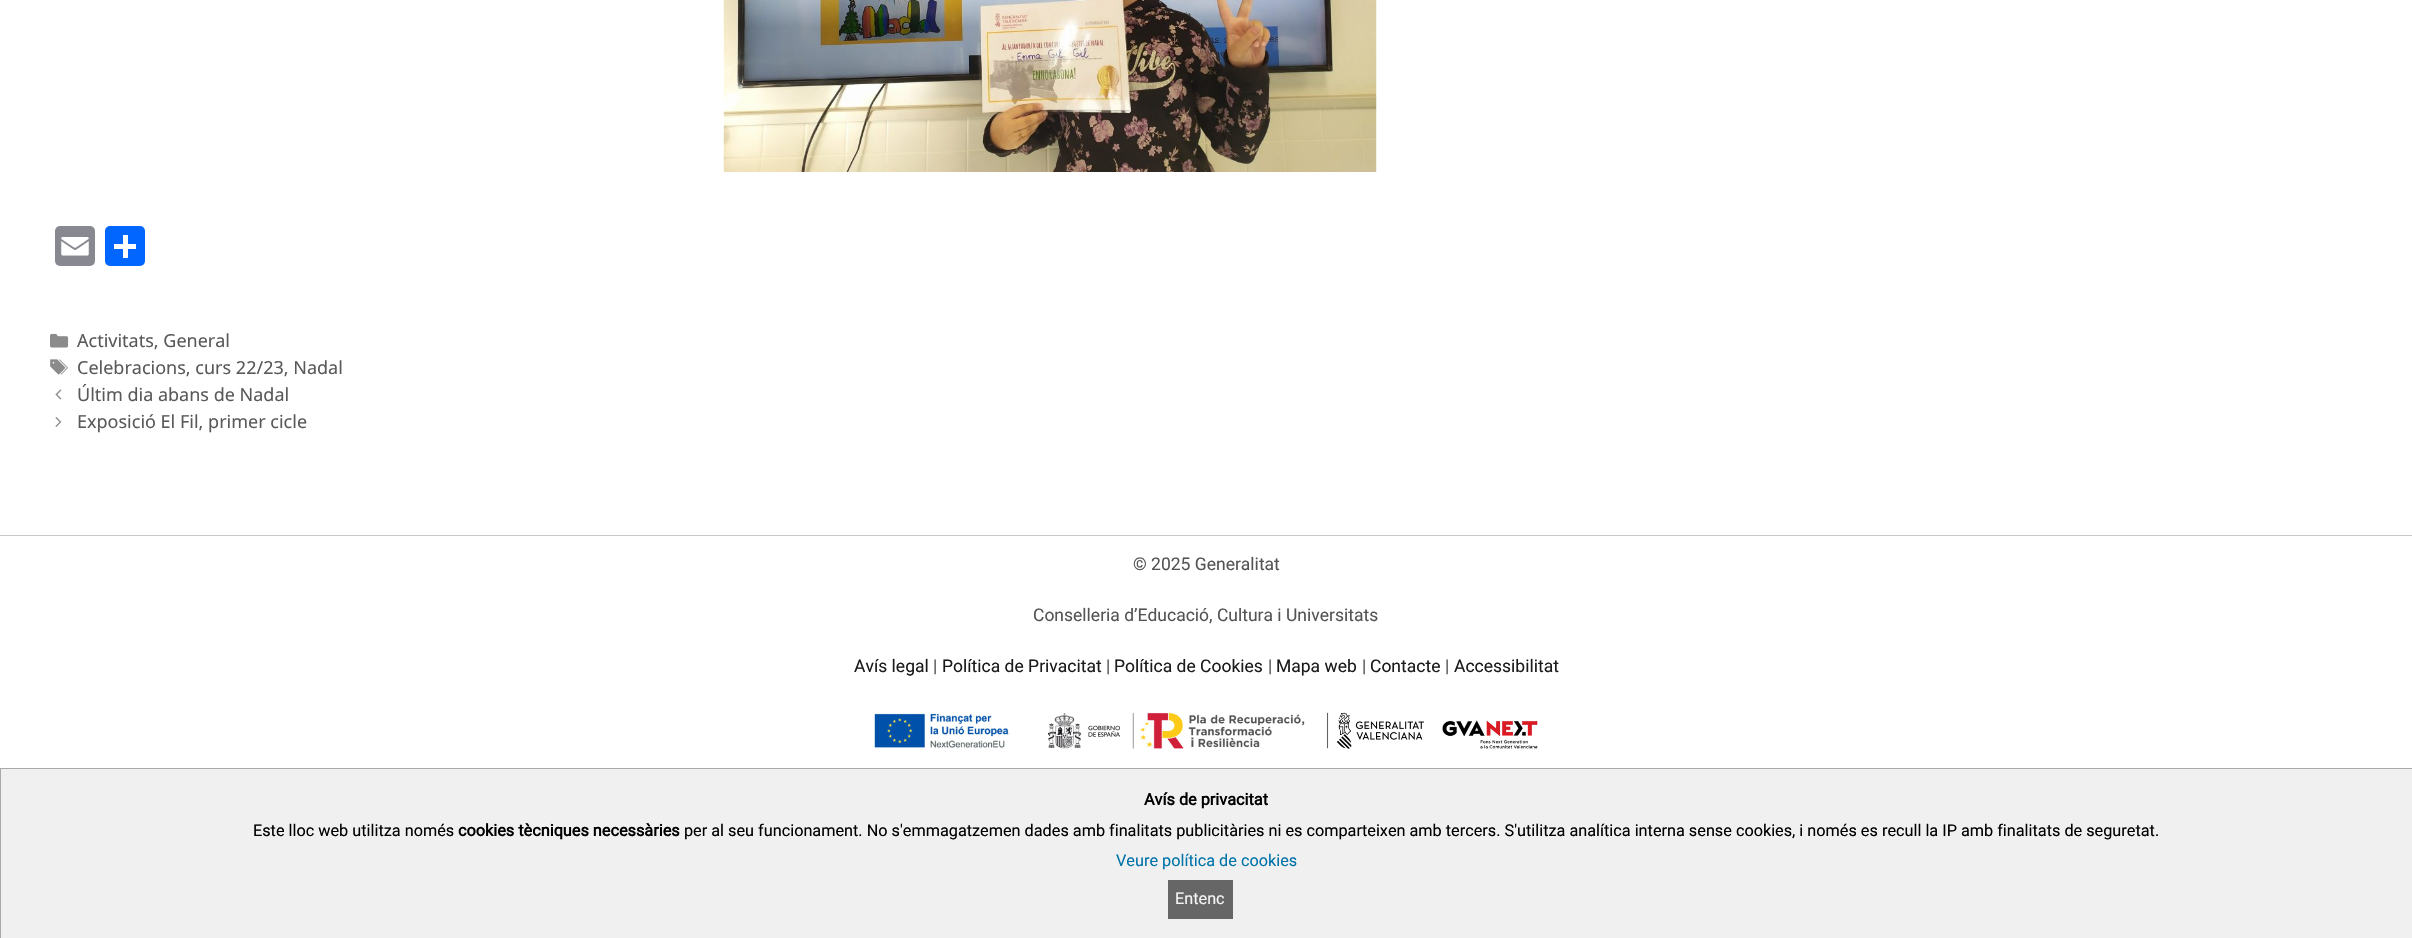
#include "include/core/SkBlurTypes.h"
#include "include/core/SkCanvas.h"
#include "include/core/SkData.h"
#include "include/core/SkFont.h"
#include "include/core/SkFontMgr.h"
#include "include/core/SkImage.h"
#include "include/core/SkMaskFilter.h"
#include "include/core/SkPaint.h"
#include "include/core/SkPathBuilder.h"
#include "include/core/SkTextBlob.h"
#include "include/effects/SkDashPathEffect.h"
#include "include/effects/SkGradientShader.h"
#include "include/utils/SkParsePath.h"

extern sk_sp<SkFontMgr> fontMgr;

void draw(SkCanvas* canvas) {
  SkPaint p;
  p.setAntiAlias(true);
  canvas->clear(SK_ColorWHITE);
  canvas->drawImageRect(SkImages::DeferredFromEncodedData(SkData::MakeFromFileName("images/1.png")), SkRect::MakeLTRB(723, 0, 1377, 172), SkSamplingOptions());
  p.setColor(SkColorSetRGB(136, 137, 144));
  canvas->drawRoundRect(SkRect::MakeLTRB(55, 226, 95, 266), 5, 5, p);
  canvas->drawImageRect(SkImages::DeferredFromEncodedData(SkData::MakeFromFileName("images/2.png")), SkRect::MakeLTRB(61, 237, 89, 256), SkSamplingOptions());
  p.setColor(SkColorSetRGB(1, 102, 255));
  canvas->drawRoundRect(SkRect::MakeLTRB(105, 226, 145, 266), 5, 5, p);
  p.setColor(SK_ColorWHITE);
  canvas->drawRect(SkRect::MakeLTRB(123, 235, 128, 258), p);
  canvas->drawRect(SkRect::MakeLTRB(114, 244, 136, 249), p);
  canvas->drawImageRect(SkImages::DeferredFromEncodedData(SkData::MakeFromFileName("images/3.png")), SkRect::MakeLTRB(50, 333, 69, 348), SkSamplingOptions());
  canvas->drawImageRect(SkImages::DeferredFromEncodedData(SkData::MakeFromFileName("images/4.png")), SkRect::MakeLTRB(50, 359, 68, 375), SkSamplingOptions());
  canvas->drawImageRect(SkImages::DeferredFromEncodedData(SkData::MakeFromFileName("images/5.png")), SkRect::MakeLTRB(55, 389, 62, 400), SkSamplingOptions());
  canvas->drawImageRect(SkImages::DeferredFromEncodedData(SkData::MakeFromFileName("images/6.png")), SkRect::MakeLTRB(55, 417, 62, 427), SkSamplingOptions());
  p.setColor(SkColorSetRGB(201, 201, 196));
  canvas->drawRect(SkRect::MakeLTRB(0, 535, 2412, 536), p);
  canvas->drawImageRect(SkImages::DeferredFromEncodedData(SkData::MakeFromFileName("images/7.png")), SkRect::MakeLTRB(874, 711, 1538, 749), SkSamplingOptions());
  p.setColor(SkColorSetRGB(240, 240, 240));
  canvas->drawRect(SkRect::MakeLTRB(0.5f, 768.5f, 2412.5f, 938.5f), p);
  p.setStyle(SkPaint::kStroke_Style);
  p.setStrokeWidth(1);
  p.setColor(SkColorSetRGB(169, 169, 169));
  canvas->drawRect(SkRect::MakeLTRB(0.5f, 768.5f, 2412.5f, 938.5f), p);
  p.setStyle(SkPaint::kFill_Style);
  p.setColor(SkColorSetRGB(102, 102, 102));
  canvas->drawRect(SkRect::MakeLTRB(1168, 880, 1233, 919), p);
  SkFont font1(fontMgr->matchFamilyStyle("Noto Sans", SkFontStyle::Normal()), 18);
  font1.setSubpixel(true);
  p.setColor(SkColorSetRGB(89, 89, 89));
  canvas->drawString("Activitats, General", 77, 347, font1, p);
  canvas->drawString("Celebracions, curs 22/23, Nadal", 77, 374, font1, p);
  canvas->drawString("Últim dia abans de Nadal", 77, 401, font1, p);
  canvas->drawString("Exposició El Fil, primer cicle", 77, 428, font1, p);
  SkFont font2(fontMgr->matchFamilyStyle("Roboto", SkFontStyle::Normal()), 17.5f);
  font2.setSubpixel(true);
  p.setColor(SkColorSetRGB(86, 83, 83));
  canvas->drawString("© 2025 Generalitat", 1133, 570, font2, p);
  canvas->drawString("Conselleria d’Educació, Cultura i Universitats", 1033, 621, font2, p);
  p.setColor(SkColorSetRGB(27, 27, 27));
  canvas->drawString("Avís legal", 854, 672, font2, p);
  p.setColor(SkColorSetRGB(86, 83, 83));
  canvas->drawString("|", 933, 672, font2, p);
  p.setColor(SkColorSetRGB(27, 27, 27));
  canvas->drawString("Política de Privacitat", 942, 672, font2, p);
  p.setColor(SkColorSetRGB(86, 83, 83));
  canvas->drawString("|", 1106, 672, font2, p);
  p.setColor(SkColorSetRGB(27, 27, 27));
  canvas->drawString("Política de Cookies", 1114, 672, font2, p);
  p.setColor(SkColorSetRGB(86, 83, 83));
  canvas->drawString("|", 1268, 672, font2, p);
  p.setColor(SkColorSetRGB(27, 27, 27));
  canvas->drawString("Mapa web", 1276, 672, font2, p);
  p.setColor(SkColorSetRGB(86, 83, 83));
  canvas->drawString("|", 1362, 672, font2, p);
  p.setColor(SkColorSetRGB(27, 27, 27));
  canvas->drawString("Contacte", 1370, 672, font2, p);
  p.setColor(SkColorSetRGB(86, 83, 83));
  canvas->drawString("|", 1445, 672, font2, p);
  p.setColor(SkColorSetRGB(27, 27, 27));
  canvas->drawString("Accessibilitat", 1454, 672, font2, p);
  SkFont font3(fontMgr->matchFamilyStyle("Roboto", SkFontStyle::Bold()), 16.25f);
  font3.setSubpixel(true);
  p.setColor(SK_ColorBLACK);
  canvas->drawString("Avís de privacitat", 1144, 805, font3, p);
  SkFont font4(fontMgr->matchFamilyStyle("Roboto", SkFontStyle::Normal()), 16.25f);
  font4.setSubpixel(true);
  canvas->drawString("Este lloc web utilitza només", 253, 836, font4, p);
  canvas->drawString("cookies tècniques necessàries", 458, 836, font3, p);
  canvas->drawString("per al seu funcionament. No s'emmagatzemen dades amb finalitats publicitàries ni es comparteixen amb tercers. S'utilitza analítica interna sense cookies, i només es recull la IP amb finalitats de seguretat.", 684, 836, font4, p);
  p.setColor(SkColorSetRGB(0, 115, 170));
  canvas->drawString("Veure política de cookies", 1116, 866, font4, p);
  p.setColor(SkColorSetRGB(245, 245, 245));
  canvas->drawString("Entenc", 1175, 904, font4, p);
}
